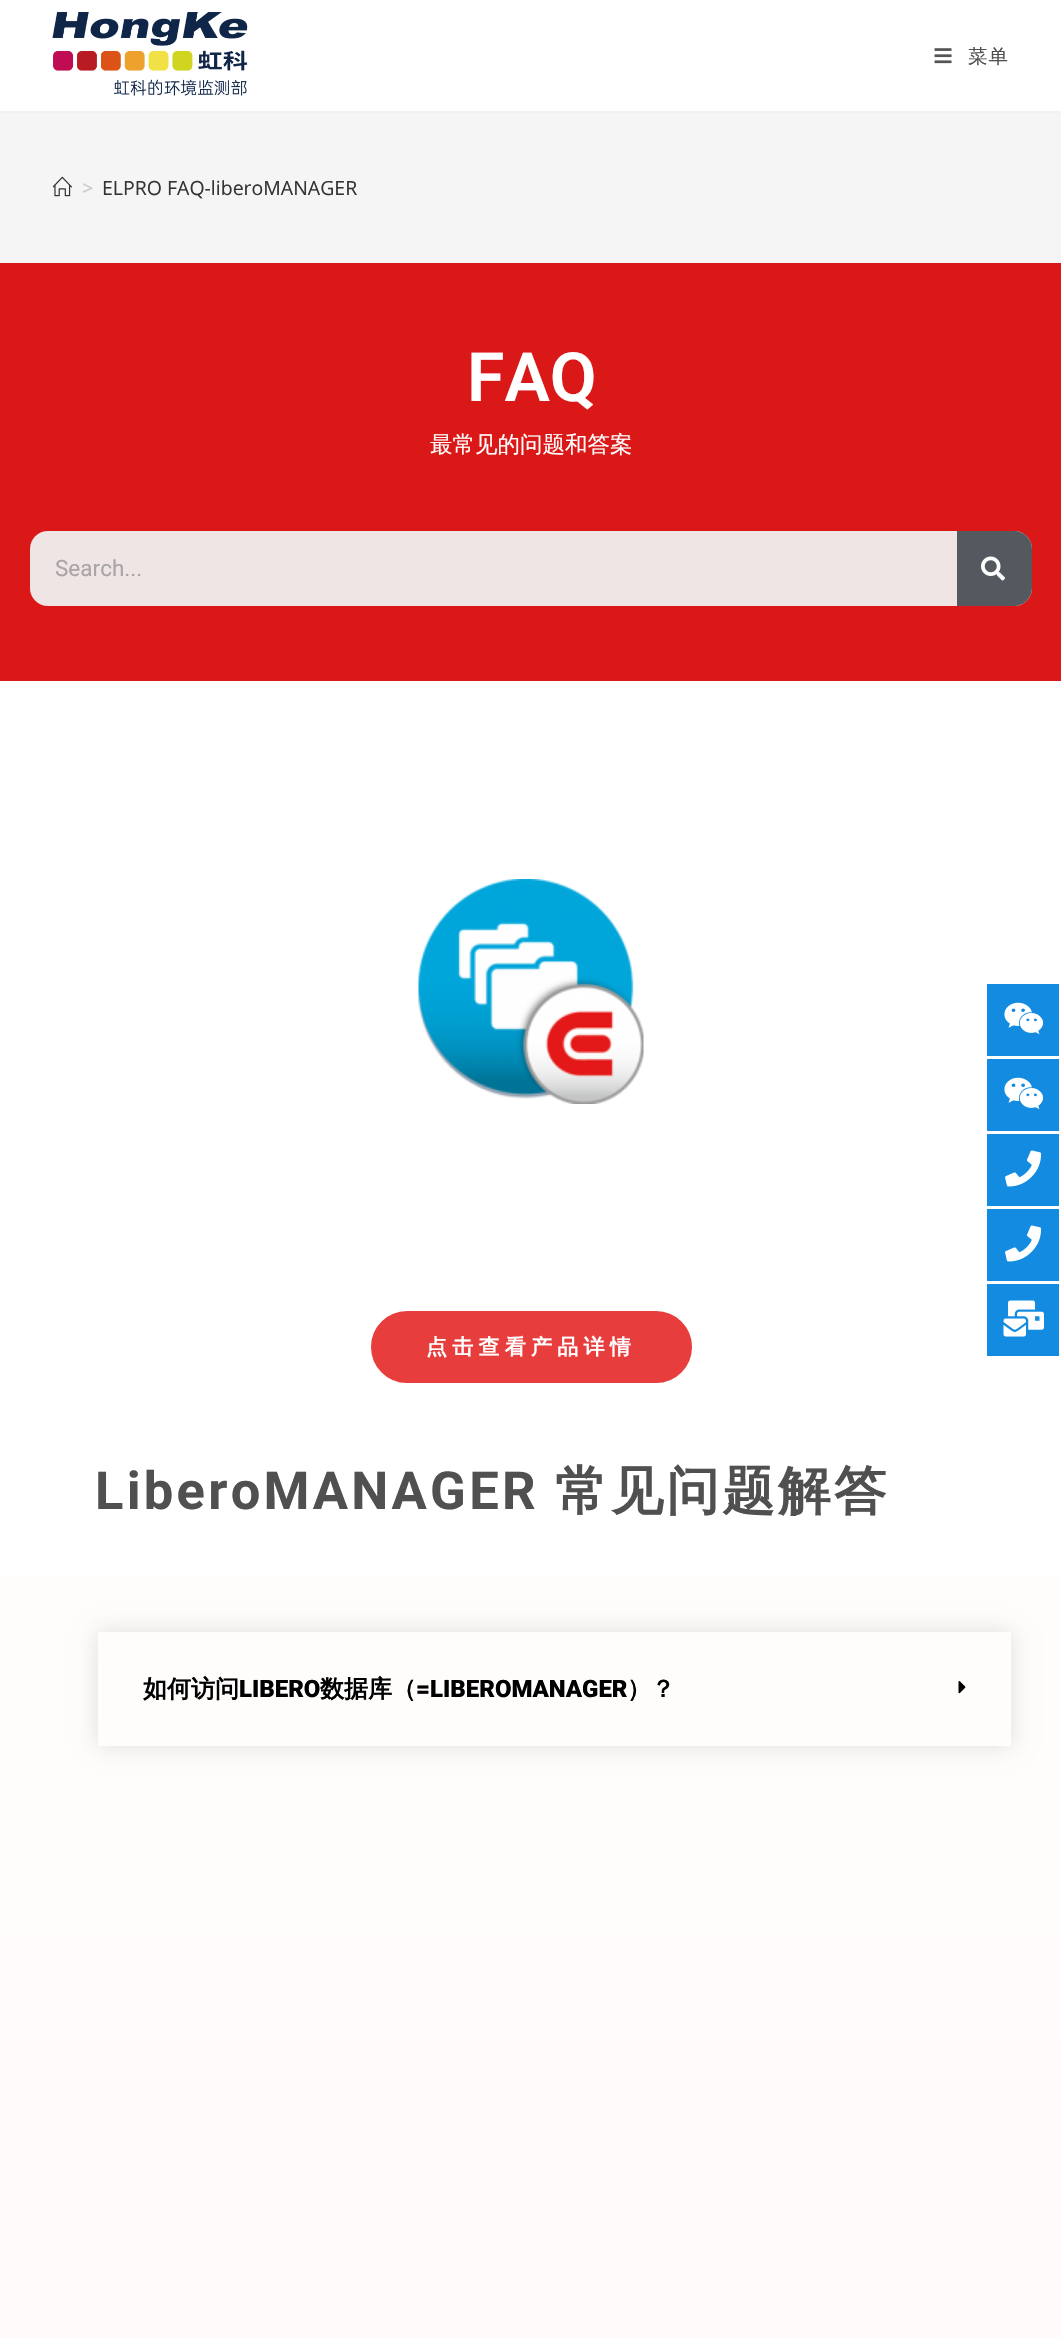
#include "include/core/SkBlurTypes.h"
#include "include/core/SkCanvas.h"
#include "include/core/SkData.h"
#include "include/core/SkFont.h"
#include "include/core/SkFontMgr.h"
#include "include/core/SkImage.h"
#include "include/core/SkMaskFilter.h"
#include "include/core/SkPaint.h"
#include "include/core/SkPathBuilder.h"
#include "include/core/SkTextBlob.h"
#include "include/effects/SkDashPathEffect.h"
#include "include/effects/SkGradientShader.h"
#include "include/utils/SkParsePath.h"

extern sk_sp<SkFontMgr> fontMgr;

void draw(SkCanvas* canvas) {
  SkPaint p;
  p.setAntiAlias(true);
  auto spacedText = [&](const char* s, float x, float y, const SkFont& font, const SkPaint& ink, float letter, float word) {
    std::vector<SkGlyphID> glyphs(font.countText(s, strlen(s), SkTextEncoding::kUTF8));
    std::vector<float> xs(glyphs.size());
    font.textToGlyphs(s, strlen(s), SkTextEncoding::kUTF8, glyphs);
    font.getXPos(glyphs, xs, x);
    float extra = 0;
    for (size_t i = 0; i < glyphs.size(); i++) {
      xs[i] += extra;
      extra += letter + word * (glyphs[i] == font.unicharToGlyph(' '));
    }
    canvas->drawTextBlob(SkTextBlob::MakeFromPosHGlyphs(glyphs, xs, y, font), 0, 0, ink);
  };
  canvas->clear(SK_ColorWHITE);
  p.setColor(SkColorSetRGB(241, 241, 241));
  canvas->drawRect(SkRect::MakeLTRB(0, 111, 1061, 113), p);
  canvas->drawImageRect(SkImages::DeferredFromEncodedData(SkData::MakeFromFileName("images/1.png")), SkRect::MakeLTRB(52, 12, 248, 96), SkSamplingOptions());
  canvas->drawImageRect(SkImages::DeferredFromEncodedData(SkData::MakeFromFileName("images/2.png")), SkRect::MakeLTRB(934, 48, 952, 64), SkSamplingOptions());
  p.setColor(SkColorSetRGB(245, 245, 245));
  canvas->drawRect(SkRect::MakeLTRB(0, 113, 1061, 263), p);
  canvas->drawImageRect(SkImages::DeferredFromEncodedData(SkData::MakeFromFileName("images/3.png")), SkRect::MakeLTRB(53, 176, 72, 197), SkSamplingOptions());
  p.setColor(SkColorSetRGB(219, 24, 24));
  canvas->drawRect(SkRect::MakeLTRB(0, 263, 1061, 681), p);
  p.setColor(SkColorSetRGB(239, 229, 229));
  canvas->drawRoundRect(SkRect::MakeLTRB(30, 531, 1032, 606), 18, 18, p);
  p.setColor(SkColorSetRGB(84, 89, 95));
  canvas->drawPath(SkPathBuilder().moveTo(957, 531).lineTo(1014, 531).cubicTo(1024, 531, 1032, 539, 1032, 549).lineTo(1032, 588).cubicTo(1032, 598, 1024, 606, 1014, 606).lineTo(957, 606).close().detach(), p);
  canvas->drawImageRect(SkImages::DeferredFromEncodedData(SkData::MakeFromFileName("images/4.png")), SkRect::MakeLTRB(981, 556, 1005, 581), SkSamplingOptions());
  {
    const SkColor colors[] = {SK_ColorWHITE, SkColorSetRGB(255, 243, 242)};
    const float stops[] = {0, 1};
    const SkPoint ends[] = {{531, 681}, {531, 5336}};
    p.setShader(SkGradientShader::MakeLinear(ends, colors, stops, 2, SkTileMode::kClamp));
    p.setAlpha(255);
  }
  canvas->drawRect(SkRect::MakeLTRB(0, 1576, 1061, 2338), p);
  canvas->drawImageRect(SkImages::DeferredFromEncodedData(SkData::MakeFromFileName("images/5.png")), SkRect::MakeLTRB(418, 879, 644, 1104), SkSamplingOptions());
  p.setShader(nullptr);
  p.setColor(SkColorSetRGB(231, 61, 61));
  canvas->drawRoundRect(SkRect::MakeLTRB(372.5f, 1312.5f, 690.5f, 1381.5f), 34.5f, 34.5f, p);
  p.setStyle(SkPaint::kStroke_Style);
  p.setStrokeWidth(3);
  canvas->drawRoundRect(SkRect::MakeLTRB(372.5f, 1312.5f, 690.5f, 1381.5f), 34.5f, 34.5f, p);
  canvas->save();
  canvas->clipPath(SkPathBuilder(SkPathFillType::kEvenOdd).moveTo(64, 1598).lineTo(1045, 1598).lineTo(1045, 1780).lineTo(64, 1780).close().moveTo(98, 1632).lineTo(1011, 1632).lineTo(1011, 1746).lineTo(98, 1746).close().detach(), true);
  p.setStyle(SkPaint::kFill_Style);
  p.setColor(SkColorSetARGB(31, 0, 0, 0));
  p.setMaskFilter(SkMaskFilter::MakeBlur(kNormal_SkBlurStyle, 11));
  canvas->drawRect(SkRect::MakeLTRB(98, 1632, 1011, 1746), p);
  p.setMaskFilter(nullptr);
  canvas->restore();
  canvas->drawImageRect(SkImages::DeferredFromEncodedData(SkData::MakeFromFileName("images/6.png")), SkRect::MakeLTRB(958, 1681, 966, 1694), SkSamplingOptions());
  p.setColor(SkColorSetRGB(18, 139, 224));
  canvas->drawRect(SkRect::MakeLTRB(987, 984, 1059, 1056), p);
  canvas->drawImageRect(SkImages::DeferredFromEncodedData(SkData::MakeFromFileName("images/7.png")), SkRect::MakeLTRB(1004, 1002, 1044, 1035), SkSamplingOptions());
  canvas->drawRect(SkRect::MakeLTRB(987, 1059, 1059, 1131), p);
  canvas->drawImageRect(SkImages::DeferredFromEncodedData(SkData::MakeFromFileName("images/7.png")), SkRect::MakeLTRB(1004, 1077, 1044, 1110), SkSamplingOptions());
  canvas->drawRect(SkRect::MakeLTRB(987, 1134, 1059, 1206), p);
  canvas->drawImageRect(SkImages::DeferredFromEncodedData(SkData::MakeFromFileName("images/8.png")), SkRect::MakeLTRB(1005, 1150, 1042, 1187), SkSamplingOptions());
  canvas->drawRect(SkRect::MakeLTRB(987, 1209, 1059, 1281), p);
  canvas->drawImageRect(SkImages::DeferredFromEncodedData(SkData::MakeFromFileName("images/8.png")), SkRect::MakeLTRB(1005, 1225, 1042, 1262), SkSamplingOptions());
  canvas->drawRect(SkRect::MakeLTRB(987, 1284, 1059, 1356), p);
  canvas->drawImageRect(SkImages::DeferredFromEncodedData(SkData::MakeFromFileName("images/9.png")), SkRect::MakeLTRB(1003, 1300, 1044, 1337), SkSamplingOptions());
  SkFont font1(fontMgr->matchFamilyStyle("WenQuanYi Zen Hei", SkFontStyle(500, SkFontStyle::kNormal_Width, SkFontStyle::kUpright_Slant)), 19.5f);
  font1.setSubpixel(true);
  p.setColor(SkColorSetRGB(80, 80, 80));
  spacedText("菜单", 968, 63, font1, p, 1, 0);
  SkFont font2(fontMgr->matchFamilyStyle("Open Sans", SkFontStyle::Normal()), 19.5f);
  font2.setSubpixel(true);
  p.setColor(SkColorSetRGB(198, 198, 198));
  canvas->drawString(">", 82, 195, font2, p);
  p.setColor(SkColorSetRGB(51, 51, 51));
  canvas->drawString("ELPRO FAQ-liberoMANAGER", 102, 195, font2, p);
  SkFont font3(fontMgr->matchFamilyStyle("Roboto", SkFontStyle(600, SkFontStyle::kNormal_Width, SkFontStyle::kUpright_Slant)), 68);
  font3.setSubpixel(true);
  p.setColor(SK_ColorWHITE);
  canvas->drawString("FAQ", 467, 401, font3, p);
  SkFont font4(fontMgr->matchFamilyStyle("WenQuanYi Zen Hei", SkFontStyle(500, SkFontStyle::kNormal_Width, SkFontStyle::kUpright_Slant)), 22.5f);
  font4.setSubpixel(true);
  canvas->drawString("最常见的问题和答案", 430, 452, font4, p);
  SkFont font5(fontMgr->matchFamilyStyle("Roboto", SkFontStyle::Normal()), 22.5f);
  font5.setSubpixel(true);
  p.setColor(SkColorSetRGB(169, 165, 165));
  canvas->drawString("Search...", 55, 576, font5, p);
  SkFont font6(fontMgr->matchFamilyStyle("WenQuanYi Zen Hei", SkFontStyle::Bold()), 21);
  font6.setSubpixel(true);
  p.setColor(SK_ColorWHITE);
  spacedText("点击查看产品详情", 426, 1354, font6, p, 5.25f, 0);
  SkFont font7(fontMgr->matchFamilyStyle("Roboto", SkFontStyle::Bold()), 52.5f);
  font7.setSubpixel(true);
  p.setColor(SkColorSetRGB(80, 80, 80));
  spacedText("LiberoMANAGER", 95, 1509, font7, p, 3.25f, 0);
  SkFont font8(fontMgr->matchFamilyStyle("WenQuanYi Zen Hei", SkFontStyle::Bold()), 52.5f);
  font8.setSubpixel(true);
  spacedText("常见问题解答", 555, 1509, font8, p, 3.25f, 0);
  SkFont font9(fontMgr->matchFamilyStyle("WenQuanYi Zen Hei", SkFontStyle::Bold()), 24);
  font9.setSubpixel(true);
  p.setColor(SK_ColorBLACK);
  canvas->drawString("如何访问", 143, 1697, font9, p);
  SkFont font10(fontMgr->matchFamilyStyle("Roboto", SkFontStyle(900, SkFontStyle::kNormal_Width, SkFontStyle::kUpright_Slant)), 24);
  font10.setSubpixel(true);
  canvas->drawString("LIBERO", 239, 1697, font10, p);
  canvas->drawString("数据库（", 320, 1697, font9, p);
  canvas->drawString("=LIBEROMANAGER", 416, 1697, font10, p);
  canvas->drawString("）？", 627, 1697, font9, p);
}
